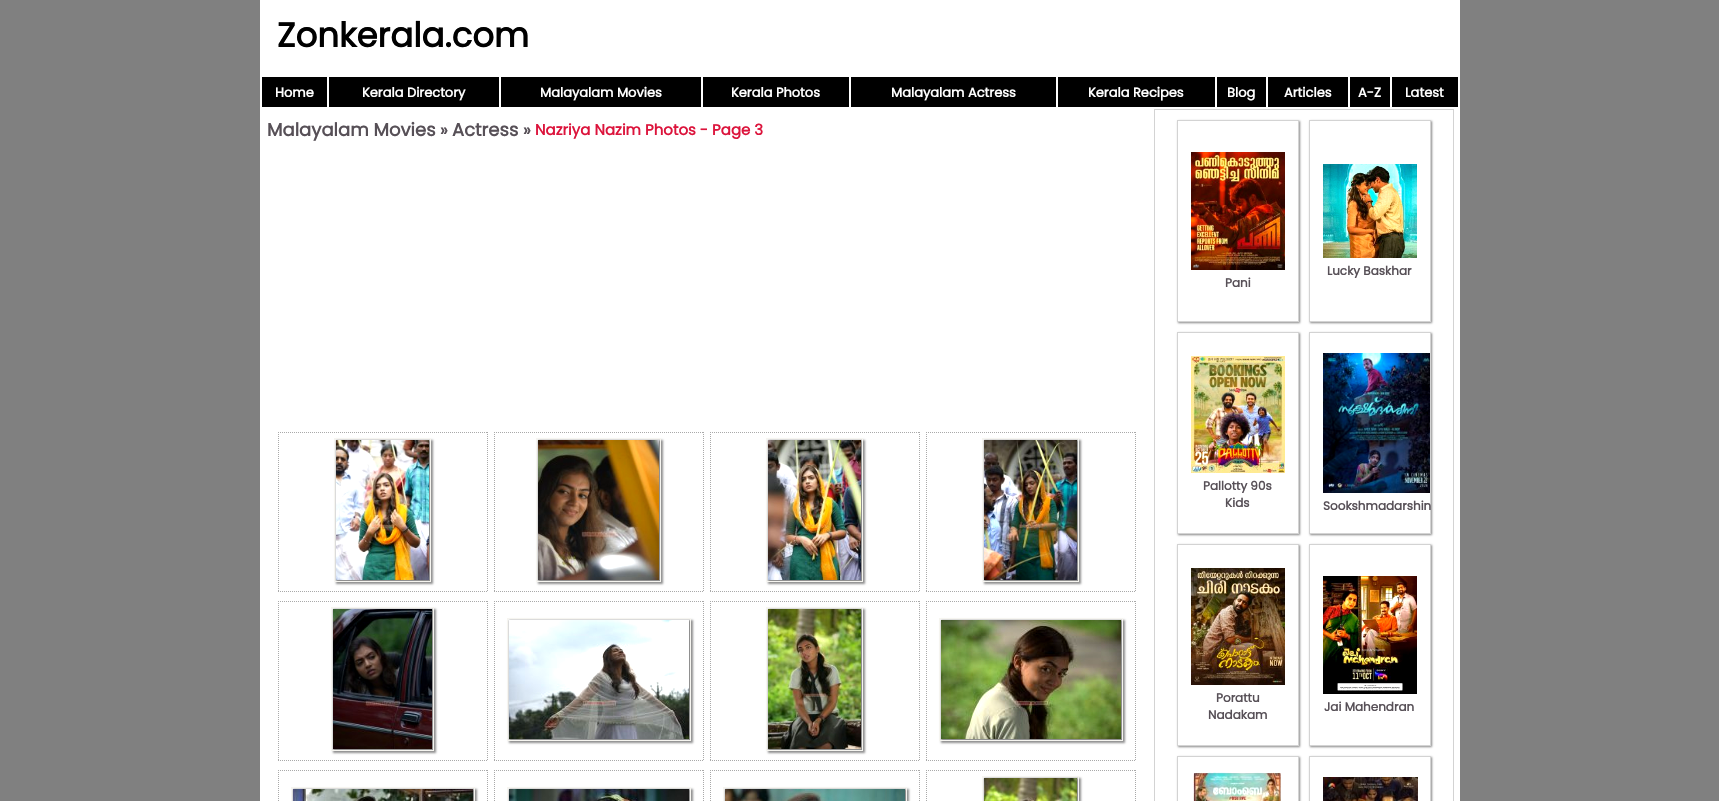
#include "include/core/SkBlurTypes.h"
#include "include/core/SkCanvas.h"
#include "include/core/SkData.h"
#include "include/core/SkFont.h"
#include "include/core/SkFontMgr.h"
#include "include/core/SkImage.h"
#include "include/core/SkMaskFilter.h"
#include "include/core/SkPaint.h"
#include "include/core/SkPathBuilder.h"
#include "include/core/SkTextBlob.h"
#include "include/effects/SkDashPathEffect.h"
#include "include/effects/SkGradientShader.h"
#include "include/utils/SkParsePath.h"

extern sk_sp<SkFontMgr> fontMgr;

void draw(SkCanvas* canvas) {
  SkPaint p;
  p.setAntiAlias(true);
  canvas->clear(SkColorSetRGB(128, 128, 128));
  p.setColor(SK_ColorWHITE);
  canvas->drawRect(SkRect::MakeLTRB(260, 0, 1460, 801), p);
  p.setColor(SK_ColorBLACK);
  canvas->drawRect(SkRect::MakeLTRB(262, 77, 327, 107), p);
  canvas->drawRect(SkRect::MakeLTRB(329, 77, 499, 107), p);
  canvas->drawRect(SkRect::MakeLTRB(501, 77, 701, 107), p);
  canvas->drawRect(SkRect::MakeLTRB(703, 77, 849, 107), p);
  canvas->drawRect(SkRect::MakeLTRB(851, 77, 1056, 107), p);
  canvas->drawRect(SkRect::MakeLTRB(1058, 77, 1215, 107), p);
  canvas->drawRect(SkRect::MakeLTRB(1217, 77, 1266, 107), p);
  canvas->drawRect(SkRect::MakeLTRB(1268, 77, 1348, 107), p);
  canvas->drawRect(SkRect::MakeLTRB(1350, 77, 1390, 107), p);
  canvas->drawRect(SkRect::MakeLTRB(1392, 77, 1458, 107), p);
  p.setStyle(SkPaint::kStroke_Style);
  p.setStrokeWidth(1);
  p.setColor(SkColorSetRGB(169, 169, 169));
  p.setPathEffect(SkDashPathEffect::Make({{1, 1}}, 0));
  canvas->drawPath(SkPathBuilder().moveTo(278, 432.5f).lineTo(488, 432.5f).detach(), p);
  p.setPathEffect(nullptr);
  p.setPathEffect(SkDashPathEffect::Make({{1, 1}}, 0));
  canvas->drawPath(SkPathBuilder().moveTo(487.5f, 432).lineTo(487.5f, 592).detach(), p);
  p.setPathEffect(nullptr);
  p.setPathEffect(SkDashPathEffect::Make({{1, 1}}, 0));
  canvas->drawPath(SkPathBuilder().moveTo(278, 591.5f).lineTo(488, 591.5f).detach(), p);
  p.setPathEffect(nullptr);
  p.setPathEffect(SkDashPathEffect::Make({{1, 1}}, 0));
  canvas->drawPath(SkPathBuilder().moveTo(278.5f, 432).lineTo(278.5f, 592).detach(), p);
  p.setPathEffect(nullptr);
  p.setStyle(SkPaint::kFill_Style);
  p.setColor(SkColorSetRGB(144, 144, 144));
  p.setMaskFilter(SkMaskFilter::MakeBlur(kNormal_SkBlurStyle, 1));
  canvas->drawRect(SkRect::MakeLTRB(336, 440, 433, 584), p);
  p.setMaskFilter(nullptr);
  p.setStyle(SkPaint::kStroke_Style);
  p.setColor(SkColorSetRGB(246, 245, 240));
  canvas->drawRect(SkRect::MakeLTRB(334.5f, 438.5f, 430.5f, 581.5f), p);
  canvas->drawImageRect(SkImages::DeferredFromEncodedData(SkData::MakeFromFileName("images/1.png")), SkRect::MakeLTRB(336, 440, 429, 580), SkSamplingOptions());
  p.setColor(SkColorSetRGB(169, 169, 169));
  p.setPathEffect(SkDashPathEffect::Make({{1, 1}}, 0));
  canvas->drawPath(SkPathBuilder().moveTo(494, 432.5f).lineTo(704, 432.5f).detach(), p);
  p.setPathEffect(nullptr);
  p.setPathEffect(SkDashPathEffect::Make({{1, 1}}, 0));
  canvas->drawPath(SkPathBuilder().moveTo(703.5f, 432).lineTo(703.5f, 592).detach(), p);
  p.setPathEffect(nullptr);
  p.setPathEffect(SkDashPathEffect::Make({{1, 1}}, 0));
  canvas->drawPath(SkPathBuilder().moveTo(494, 591.5f).lineTo(704, 591.5f).detach(), p);
  p.setPathEffect(nullptr);
  p.setPathEffect(SkDashPathEffect::Make({{1, 1}}, 0));
  canvas->drawPath(SkPathBuilder().moveTo(494.5f, 432).lineTo(494.5f, 592).detach(), p);
  p.setPathEffect(nullptr);
  p.setStyle(SkPaint::kFill_Style);
  p.setColor(SkColorSetRGB(144, 144, 144));
  p.setMaskFilter(SkMaskFilter::MakeBlur(kNormal_SkBlurStyle, 1));
  canvas->drawRect(SkRect::MakeLTRB(538, 440, 663, 584), p);
  p.setMaskFilter(nullptr);
  p.setStyle(SkPaint::kStroke_Style);
  p.setColor(SkColorSetRGB(246, 245, 240));
  canvas->drawRect(SkRect::MakeLTRB(536.5f, 438.5f, 660.5f, 581.5f), p);
  canvas->drawImageRect(SkImages::DeferredFromEncodedData(SkData::MakeFromFileName("images/2.png")), SkRect::MakeLTRB(538, 440, 659, 580), SkSamplingOptions());
  p.setColor(SkColorSetRGB(169, 169, 169));
  p.setPathEffect(SkDashPathEffect::Make({{1, 1}}, 0));
  canvas->drawPath(SkPathBuilder().moveTo(710, 432.5f).lineTo(920, 432.5f).detach(), p);
  p.setPathEffect(nullptr);
  p.setPathEffect(SkDashPathEffect::Make({{1, 1}}, 0));
  canvas->drawPath(SkPathBuilder().moveTo(919.5f, 432).lineTo(919.5f, 592).detach(), p);
  p.setPathEffect(nullptr);
  p.setPathEffect(SkDashPathEffect::Make({{1, 1}}, 0));
  canvas->drawPath(SkPathBuilder().moveTo(710, 591.5f).lineTo(920, 591.5f).detach(), p);
  p.setPathEffect(nullptr);
  p.setPathEffect(SkDashPathEffect::Make({{1, 1}}, 0));
  canvas->drawPath(SkPathBuilder().moveTo(710.5f, 432).lineTo(710.5f, 592).detach(), p);
  p.setPathEffect(nullptr);
  p.setStyle(SkPaint::kFill_Style);
  p.setColor(SkColorSetRGB(144, 144, 144));
  p.setMaskFilter(SkMaskFilter::MakeBlur(kNormal_SkBlurStyle, 1));
  canvas->drawRect(SkRect::MakeLTRB(768, 440, 865, 584), p);
  p.setMaskFilter(nullptr);
  p.setStyle(SkPaint::kStroke_Style);
  p.setColor(SkColorSetRGB(246, 245, 240));
  canvas->drawRect(SkRect::MakeLTRB(766.5f, 438.5f, 862.5f, 581.5f), p);
  canvas->drawImageRect(SkImages::DeferredFromEncodedData(SkData::MakeFromFileName("images/3.png")), SkRect::MakeLTRB(768, 440, 861, 580), SkSamplingOptions());
  p.setColor(SkColorSetRGB(169, 169, 169));
  p.setPathEffect(SkDashPathEffect::Make({{1, 1}}, 0));
  canvas->drawPath(SkPathBuilder().moveTo(926, 432.5f).lineTo(1136, 432.5f).detach(), p);
  p.setPathEffect(nullptr);
  p.setPathEffect(SkDashPathEffect::Make({{1, 1}}, 0));
  canvas->drawPath(SkPathBuilder().moveTo(1135.5f, 432).lineTo(1135.5f, 592).detach(), p);
  p.setPathEffect(nullptr);
  p.setPathEffect(SkDashPathEffect::Make({{1, 1}}, 0));
  canvas->drawPath(SkPathBuilder().moveTo(926, 591.5f).lineTo(1136, 591.5f).detach(), p);
  p.setPathEffect(nullptr);
  p.setPathEffect(SkDashPathEffect::Make({{1, 1}}, 0));
  canvas->drawPath(SkPathBuilder().moveTo(926.5f, 432).lineTo(926.5f, 592).detach(), p);
  p.setPathEffect(nullptr);
  p.setStyle(SkPaint::kFill_Style);
  p.setColor(SkColorSetRGB(144, 144, 144));
  p.setMaskFilter(SkMaskFilter::MakeBlur(kNormal_SkBlurStyle, 1));
  canvas->drawRect(SkRect::MakeLTRB(984, 440, 1081, 584), p);
  p.setMaskFilter(nullptr);
  p.setStyle(SkPaint::kStroke_Style);
  p.setColor(SkColorSetRGB(246, 245, 240));
  canvas->drawRect(SkRect::MakeLTRB(982.5f, 438.5f, 1078.5f, 581.5f), p);
  canvas->drawImageRect(SkImages::DeferredFromEncodedData(SkData::MakeFromFileName("images/4.png")), SkRect::MakeLTRB(984, 440, 1077, 580), SkSamplingOptions());
  p.setColor(SkColorSetRGB(169, 169, 169));
  p.setPathEffect(SkDashPathEffect::Make({{1, 1}}, 0));
  canvas->drawPath(SkPathBuilder().moveTo(278, 601.5f).lineTo(488, 601.5f).detach(), p);
  p.setPathEffect(nullptr);
  p.setPathEffect(SkDashPathEffect::Make({{1, 1}}, 0));
  canvas->drawPath(SkPathBuilder().moveTo(487.5f, 601).lineTo(487.5f, 761).detach(), p);
  p.setPathEffect(nullptr);
  p.setPathEffect(SkDashPathEffect::Make({{1, 1}}, 0));
  canvas->drawPath(SkPathBuilder().moveTo(278, 760.5f).lineTo(488, 760.5f).detach(), p);
  p.setPathEffect(nullptr);
  p.setPathEffect(SkDashPathEffect::Make({{1, 1}}, 0));
  canvas->drawPath(SkPathBuilder().moveTo(278.5f, 601).lineTo(278.5f, 761).detach(), p);
  p.setPathEffect(nullptr);
  p.setStyle(SkPaint::kFill_Style);
  p.setColor(SkColorSetRGB(144, 144, 144));
  p.setMaskFilter(SkMaskFilter::MakeBlur(kNormal_SkBlurStyle, 1));
  canvas->drawRect(SkRect::MakeLTRB(333, 609, 436, 753), p);
  p.setMaskFilter(nullptr);
  p.setStyle(SkPaint::kStroke_Style);
  p.setColor(SkColorSetRGB(246, 245, 240));
  canvas->drawRect(SkRect::MakeLTRB(331.5f, 607.5f, 433.5f, 750.5f), p);
  canvas->drawImageRect(SkImages::DeferredFromEncodedData(SkData::MakeFromFileName("images/5.png")), SkRect::MakeLTRB(333, 609, 432, 749), SkSamplingOptions());
  p.setColor(SkColorSetRGB(169, 169, 169));
  p.setPathEffect(SkDashPathEffect::Make({{1, 1}}, 0));
  canvas->drawPath(SkPathBuilder().moveTo(494, 601.5f).lineTo(704, 601.5f).detach(), p);
  p.setPathEffect(nullptr);
  p.setPathEffect(SkDashPathEffect::Make({{1, 1}}, 0));
  canvas->drawPath(SkPathBuilder().moveTo(703.5f, 601).lineTo(703.5f, 761).detach(), p);
  p.setPathEffect(nullptr);
  p.setPathEffect(SkDashPathEffect::Make({{1, 1}}, 0));
  canvas->drawPath(SkPathBuilder().moveTo(494, 760.5f).lineTo(704, 760.5f).detach(), p);
  p.setPathEffect(nullptr);
  p.setPathEffect(SkDashPathEffect::Make({{1, 1}}, 0));
  canvas->drawPath(SkPathBuilder().moveTo(494.5f, 601).lineTo(494.5f, 761).detach(), p);
  p.setPathEffect(nullptr);
  p.setStyle(SkPaint::kFill_Style);
  p.setColor(SkColorSetRGB(144, 144, 144));
  p.setMaskFilter(SkMaskFilter::MakeBlur(kNormal_SkBlurStyle, 1));
  canvas->drawRect(SkRect::MakeLTRB(509, 620, 693, 743), p);
  p.setMaskFilter(nullptr);
  p.setStyle(SkPaint::kStroke_Style);
  p.setColor(SkColorSetRGB(246, 245, 240));
  canvas->drawRect(SkRect::MakeLTRB(507.5f, 618.5f, 690.5f, 740.5f), p);
  canvas->drawImageRect(SkImages::DeferredFromEncodedData(SkData::MakeFromFileName("images/6.png")), SkRect::MakeLTRB(509, 620, 689, 739), SkSamplingOptions());
  p.setColor(SkColorSetRGB(169, 169, 169));
  p.setPathEffect(SkDashPathEffect::Make({{1, 1}}, 0));
  canvas->drawPath(SkPathBuilder().moveTo(710, 601.5f).lineTo(920, 601.5f).detach(), p);
  p.setPathEffect(nullptr);
  p.setPathEffect(SkDashPathEffect::Make({{1, 1}}, 0));
  canvas->drawPath(SkPathBuilder().moveTo(919.5f, 601).lineTo(919.5f, 761).detach(), p);
  p.setPathEffect(nullptr);
  p.setPathEffect(SkDashPathEffect::Make({{1, 1}}, 0));
  canvas->drawPath(SkPathBuilder().moveTo(710, 760.5f).lineTo(920, 760.5f).detach(), p);
  p.setPathEffect(nullptr);
  p.setPathEffect(SkDashPathEffect::Make({{1, 1}}, 0));
  canvas->drawPath(SkPathBuilder().moveTo(710.5f, 601).lineTo(710.5f, 761).detach(), p);
  p.setPathEffect(nullptr);
  p.setStyle(SkPaint::kFill_Style);
  p.setColor(SkColorSetRGB(144, 144, 144));
  p.setMaskFilter(SkMaskFilter::MakeBlur(kNormal_SkBlurStyle, 1));
  canvas->drawRect(SkRect::MakeLTRB(768, 609, 865, 753), p);
  p.setMaskFilter(nullptr);
  p.setStyle(SkPaint::kStroke_Style);
  p.setColor(SkColorSetRGB(246, 245, 240));
  canvas->drawRect(SkRect::MakeLTRB(766.5f, 607.5f, 862.5f, 750.5f), p);
  canvas->drawImageRect(SkImages::DeferredFromEncodedData(SkData::MakeFromFileName("images/7.png")), SkRect::MakeLTRB(768, 609, 861, 749), SkSamplingOptions());
  p.setColor(SkColorSetRGB(169, 169, 169));
  p.setPathEffect(SkDashPathEffect::Make({{1, 1}}, 0));
  canvas->drawPath(SkPathBuilder().moveTo(926, 601.5f).lineTo(1136, 601.5f).detach(), p);
  p.setPathEffect(nullptr);
  p.setPathEffect(SkDashPathEffect::Make({{1, 1}}, 0));
  canvas->drawPath(SkPathBuilder().moveTo(1135.5f, 601).lineTo(1135.5f, 761).detach(), p);
  p.setPathEffect(nullptr);
  p.setPathEffect(SkDashPathEffect::Make({{1, 1}}, 0));
  canvas->drawPath(SkPathBuilder().moveTo(926, 760.5f).lineTo(1136, 760.5f).detach(), p);
  p.setPathEffect(nullptr);
  p.setPathEffect(SkDashPathEffect::Make({{1, 1}}, 0));
  canvas->drawPath(SkPathBuilder().moveTo(926.5f, 601).lineTo(926.5f, 761).detach(), p);
  p.setPathEffect(nullptr);
  p.setStyle(SkPaint::kFill_Style);
  p.setColor(SkColorSetRGB(144, 144, 144));
  p.setMaskFilter(SkMaskFilter::MakeBlur(kNormal_SkBlurStyle, 1));
  canvas->drawRect(SkRect::MakeLTRB(941, 620, 1125, 743), p);
  p.setMaskFilter(nullptr);
  p.setStyle(SkPaint::kStroke_Style);
  p.setColor(SkColorSetRGB(246, 245, 240));
  canvas->drawRect(SkRect::MakeLTRB(939.5f, 618.5f, 1122.5f, 740.5f), p);
  canvas->drawImageRect(SkImages::DeferredFromEncodedData(SkData::MakeFromFileName("images/8.png")), SkRect::MakeLTRB(941, 620, 1121, 739), SkSamplingOptions());
  p.setColor(SkColorSetRGB(169, 169, 169));
  p.setPathEffect(SkDashPathEffect::Make({{1, 1}}, 0));
  canvas->drawPath(SkPathBuilder().moveTo(278, 770.5f).lineTo(488, 770.5f).detach(), p);
  p.setPathEffect(nullptr);
  p.setPathEffect(SkDashPathEffect::Make({{1, 1}}, 0));
  canvas->drawPath(SkPathBuilder().moveTo(487.5f, 770).lineTo(487.5f, 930).detach(), p);
  p.setPathEffect(nullptr);
  p.setPathEffect(SkDashPathEffect::Make({{1, 1}}, 0));
  canvas->drawPath(SkPathBuilder().moveTo(278.5f, 770).lineTo(278.5f, 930).detach(), p);
  p.setPathEffect(nullptr);
  p.setStyle(SkPaint::kFill_Style);
  p.setColor(SkColorSetRGB(144, 144, 144));
  p.setMaskFilter(SkMaskFilter::MakeBlur(kNormal_SkBlurStyle, 1));
  canvas->drawRect(SkRect::MakeLTRB(293, 789, 477, 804), p);
  p.setMaskFilter(nullptr);
  p.setStyle(SkPaint::kStroke_Style);
  p.setColor(SkColorSetRGB(246, 245, 240));
  canvas->drawRect(SkRect::MakeLTRB(291.5f, 787.5f, 474.5f, 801.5f), p);
  canvas->drawImageRect(SkImages::DeferredFromEncodedData(SkData::MakeFromFileName("images/9.png")), SkRect::MakeLTRB(293, 789, 473, 801), SkSamplingOptions());
  p.setColor(SkColorSetRGB(169, 169, 169));
  p.setPathEffect(SkDashPathEffect::Make({{1, 1}}, 0));
  canvas->drawPath(SkPathBuilder().moveTo(494, 770.5f).lineTo(704, 770.5f).detach(), p);
  p.setPathEffect(nullptr);
  p.setPathEffect(SkDashPathEffect::Make({{1, 1}}, 0));
  canvas->drawPath(SkPathBuilder().moveTo(703.5f, 770).lineTo(703.5f, 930).detach(), p);
  p.setPathEffect(nullptr);
  p.setPathEffect(SkDashPathEffect::Make({{1, 1}}, 0));
  canvas->drawPath(SkPathBuilder().moveTo(494.5f, 770).lineTo(494.5f, 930).detach(), p);
  p.setPathEffect(nullptr);
  p.setStyle(SkPaint::kFill_Style);
  p.setColor(SkColorSetRGB(144, 144, 144));
  p.setMaskFilter(SkMaskFilter::MakeBlur(kNormal_SkBlurStyle, 1));
  canvas->drawRect(SkRect::MakeLTRB(509, 789, 693, 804), p);
  p.setMaskFilter(nullptr);
  p.setStyle(SkPaint::kStroke_Style);
  p.setColor(SkColorSetRGB(246, 245, 240));
  canvas->drawRect(SkRect::MakeLTRB(507.5f, 787.5f, 690.5f, 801.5f), p);
  canvas->drawImageRect(SkImages::DeferredFromEncodedData(SkData::MakeFromFileName("images/10.png")), SkRect::MakeLTRB(509, 789, 689, 801), SkSamplingOptions());
  p.setColor(SkColorSetRGB(169, 169, 169));
  p.setPathEffect(SkDashPathEffect::Make({{1, 1}}, 0));
  canvas->drawPath(SkPathBuilder().moveTo(710, 770.5f).lineTo(920, 770.5f).detach(), p);
  p.setPathEffect(nullptr);
  p.setPathEffect(SkDashPathEffect::Make({{1, 1}}, 0));
  canvas->drawPath(SkPathBuilder().moveTo(919.5f, 770).lineTo(919.5f, 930).detach(), p);
  p.setPathEffect(nullptr);
  p.setPathEffect(SkDashPathEffect::Make({{1, 1}}, 0));
  canvas->drawPath(SkPathBuilder().moveTo(710.5f, 770).lineTo(710.5f, 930).detach(), p);
  p.setPathEffect(nullptr);
  p.setStyle(SkPaint::kFill_Style);
  p.setColor(SkColorSetRGB(144, 144, 144));
  p.setMaskFilter(SkMaskFilter::MakeBlur(kNormal_SkBlurStyle, 1));
  canvas->drawRect(SkRect::MakeLTRB(725, 789, 909, 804), p);
  p.setMaskFilter(nullptr);
  p.setStyle(SkPaint::kStroke_Style);
  p.setColor(SkColorSetRGB(246, 245, 240));
  canvas->drawRect(SkRect::MakeLTRB(723.5f, 787.5f, 906.5f, 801.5f), p);
  canvas->drawImageRect(SkImages::DeferredFromEncodedData(SkData::MakeFromFileName("images/11.png")), SkRect::MakeLTRB(725, 789, 905, 801), SkSamplingOptions());
  p.setColor(SkColorSetRGB(169, 169, 169));
  p.setPathEffect(SkDashPathEffect::Make({{1, 1}}, 0));
  canvas->drawPath(SkPathBuilder().moveTo(926, 770.5f).lineTo(1136, 770.5f).detach(), p);
  p.setPathEffect(nullptr);
  p.setPathEffect(SkDashPathEffect::Make({{1, 1}}, 0));
  canvas->drawPath(SkPathBuilder().moveTo(1135.5f, 770).lineTo(1135.5f, 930).detach(), p);
  p.setPathEffect(nullptr);
  p.setPathEffect(SkDashPathEffect::Make({{1, 1}}, 0));
  canvas->drawPath(SkPathBuilder().moveTo(926.5f, 770).lineTo(926.5f, 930).detach(), p);
  p.setPathEffect(nullptr);
  p.setStyle(SkPaint::kFill_Style);
  p.setColor(SkColorSetRGB(144, 144, 144));
  p.setMaskFilter(SkMaskFilter::MakeBlur(kNormal_SkBlurStyle, 1));
  canvas->drawRect(SkRect::MakeLTRB(984, 778, 1081, 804), p);
  p.setMaskFilter(nullptr);
  p.setStyle(SkPaint::kStroke_Style);
  p.setColor(SkColorSetRGB(246, 245, 240));
  canvas->drawRect(SkRect::MakeLTRB(982.5f, 776.5f, 1078.5f, 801.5f), p);
  canvas->drawImageRect(SkImages::DeferredFromEncodedData(SkData::MakeFromFileName("images/12.png")), SkRect::MakeLTRB(984, 778, 1077, 801), SkSamplingOptions());
  p.setColor(SkColorSetRGB(211, 211, 211));
  canvas->drawRect(SkRect::MakeLTRB(1154.5f, 109.5f, 1453.5f, 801.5f), p);
  canvas->save();
  canvas->clipPath(SkPathBuilder(SkPathFillType::kEvenOdd).moveTo(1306, 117).lineTo(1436, 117).lineTo(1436, 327).lineTo(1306, 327).close().moveTo(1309, 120).lineTo(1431, 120).lineTo(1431, 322).lineTo(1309, 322).close().detach(), true);
  p.setStyle(SkPaint::kFill_Style);
  p.setColor(SkColorSetRGB(136, 136, 136));
  p.setMaskFilter(SkMaskFilter::MakeBlur(kNormal_SkBlurStyle, 1));
  canvas->drawRect(SkRect::MakeLTRB(1310, 121, 1432, 323), p);
  p.setMaskFilter(nullptr);
  canvas->restore();
  p.setStyle(SkPaint::kStroke_Style);
  p.setColor(SkColorSetRGB(211, 211, 211));
  canvas->drawRect(SkRect::MakeLTRB(1309.5f, 120.5f, 1430.5f, 321.5f), p);
  canvas->drawImageRect(SkImages::DeferredFromEncodedData(SkData::MakeFromFileName("images/13.png")), SkRect::MakeLTRB(1323, 164, 1417, 258), SkSamplingOptions());
  canvas->save();
  canvas->clipPath(SkPathBuilder(SkPathFillType::kEvenOdd).moveTo(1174, 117).lineTo(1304, 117).lineTo(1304, 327).lineTo(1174, 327).close().moveTo(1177, 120).lineTo(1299, 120).lineTo(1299, 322).lineTo(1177, 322).close().detach(), true);
  p.setStyle(SkPaint::kFill_Style);
  p.setColor(SkColorSetRGB(136, 136, 136));
  p.setMaskFilter(SkMaskFilter::MakeBlur(kNormal_SkBlurStyle, 1));
  canvas->drawRect(SkRect::MakeLTRB(1178, 121, 1300, 323), p);
  p.setMaskFilter(nullptr);
  canvas->restore();
  p.setStyle(SkPaint::kStroke_Style);
  p.setColor(SkColorSetRGB(211, 211, 211));
  canvas->drawRect(SkRect::MakeLTRB(1177.5f, 120.5f, 1298.5f, 321.5f), p);
  canvas->drawImageRect(SkImages::DeferredFromEncodedData(SkData::MakeFromFileName("images/14.png")), SkRect::MakeLTRB(1191, 152, 1285, 270), SkSamplingOptions());
  canvas->save();
  canvas->clipPath(SkPathBuilder(SkPathFillType::kEvenOdd).moveTo(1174, 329).lineTo(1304, 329).lineTo(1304, 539).lineTo(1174, 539).close().moveTo(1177, 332).lineTo(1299, 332).lineTo(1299, 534).lineTo(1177, 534).close().detach(), true);
  p.setStyle(SkPaint::kFill_Style);
  p.setColor(SkColorSetRGB(136, 136, 136));
  p.setMaskFilter(SkMaskFilter::MakeBlur(kNormal_SkBlurStyle, 1));
  canvas->drawRect(SkRect::MakeLTRB(1178, 333, 1300, 535), p);
  p.setMaskFilter(nullptr);
  canvas->restore();
  p.setStyle(SkPaint::kStroke_Style);
  p.setColor(SkColorSetRGB(211, 211, 211));
  canvas->drawRect(SkRect::MakeLTRB(1177.5f, 332.5f, 1298.5f, 533.5f), p);
  canvas->drawImageRect(SkImages::DeferredFromEncodedData(SkData::MakeFromFileName("images/15.png")), SkRect::MakeLTRB(1191, 356, 1285, 473), SkSamplingOptions());
  canvas->save();
  canvas->clipPath(SkPathBuilder(SkPathFillType::kEvenOdd).moveTo(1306, 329).lineTo(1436, 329).lineTo(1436, 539).lineTo(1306, 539).close().moveTo(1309, 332).lineTo(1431, 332).lineTo(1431, 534).lineTo(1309, 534).close().detach(), true);
  p.setStyle(SkPaint::kFill_Style);
  p.setColor(SkColorSetRGB(136, 136, 136));
  p.setMaskFilter(SkMaskFilter::MakeBlur(kNormal_SkBlurStyle, 1));
  canvas->drawRect(SkRect::MakeLTRB(1310, 333, 1432, 535), p);
  p.setMaskFilter(nullptr);
  canvas->restore();
  p.setStyle(SkPaint::kStroke_Style);
  p.setColor(SkColorSetRGB(211, 211, 211));
  canvas->drawRect(SkRect::MakeLTRB(1309.5f, 332.5f, 1430.5f, 533.5f), p);
  canvas->drawImageRect(SkImages::DeferredFromEncodedData(SkData::MakeFromFileName("images/16.png")), SkRect::MakeLTRB(1323, 353, 1430, 493), SkSamplingOptions());
  canvas->save();
  canvas->clipPath(SkPathBuilder(SkPathFillType::kEvenOdd).moveTo(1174, 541).lineTo(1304, 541).lineTo(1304, 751).lineTo(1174, 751).close().moveTo(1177, 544).lineTo(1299, 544).lineTo(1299, 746).lineTo(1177, 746).close().detach(), true);
  p.setStyle(SkPaint::kFill_Style);
  p.setColor(SkColorSetRGB(136, 136, 136));
  p.setMaskFilter(SkMaskFilter::MakeBlur(kNormal_SkBlurStyle, 1));
  canvas->drawRect(SkRect::MakeLTRB(1178, 545, 1300, 747), p);
  p.setMaskFilter(nullptr);
  canvas->restore();
  p.setStyle(SkPaint::kStroke_Style);
  p.setColor(SkColorSetRGB(211, 211, 211));
  canvas->drawRect(SkRect::MakeLTRB(1177.5f, 544.5f, 1298.5f, 745.5f), p);
  canvas->drawImageRect(SkImages::DeferredFromEncodedData(SkData::MakeFromFileName("images/17.png")), SkRect::MakeLTRB(1191, 568, 1285, 685), SkSamplingOptions());
  canvas->save();
  canvas->clipPath(SkPathBuilder(SkPathFillType::kEvenOdd).moveTo(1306, 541).lineTo(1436, 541).lineTo(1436, 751).lineTo(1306, 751).close().moveTo(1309, 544).lineTo(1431, 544).lineTo(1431, 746).lineTo(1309, 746).close().detach(), true);
  p.setStyle(SkPaint::kFill_Style);
  p.setColor(SkColorSetRGB(136, 136, 136));
  p.setMaskFilter(SkMaskFilter::MakeBlur(kNormal_SkBlurStyle, 1));
  canvas->drawRect(SkRect::MakeLTRB(1310, 545, 1432, 747), p);
  p.setMaskFilter(nullptr);
  canvas->restore();
  p.setStyle(SkPaint::kStroke_Style);
  p.setColor(SkColorSetRGB(211, 211, 211));
  canvas->drawRect(SkRect::MakeLTRB(1309.5f, 544.5f, 1430.5f, 745.5f), p);
  canvas->drawImageRect(SkImages::DeferredFromEncodedData(SkData::MakeFromFileName("images/18.png")), SkRect::MakeLTRB(1323, 576, 1417, 694), SkSamplingOptions());
  canvas->save();
  canvas->clipPath(SkPathBuilder(SkPathFillType::kEvenOdd).moveTo(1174, 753).lineTo(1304, 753).lineTo(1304, 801).lineTo(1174, 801).close().moveTo(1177, 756).lineTo(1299, 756).lineTo(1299, 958).lineTo(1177, 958).close().detach(), true);
  p.setStyle(SkPaint::kFill_Style);
  p.setColor(SkColorSetRGB(136, 136, 136));
  p.setMaskFilter(SkMaskFilter::MakeBlur(kNormal_SkBlurStyle, 1));
  canvas->drawRect(SkRect::MakeLTRB(1178, 757, 1300, 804), p);
  p.setMaskFilter(nullptr);
  canvas->restore();
  p.setStyle(SkPaint::kStroke_Style);
  p.setColor(SkColorSetRGB(211, 211, 211));
  canvas->drawRect(SkRect::MakeLTRB(1177.5f, 756.5f, 1298.5f, 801.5f), p);
  canvas->drawImageRect(SkImages::DeferredFromEncodedData(SkData::MakeFromFileName("images/19.png")), SkRect::MakeLTRB(1193, 772, 1281, 801), SkSamplingOptions());
  canvas->save();
  canvas->clipPath(SkPathBuilder(SkPathFillType::kEvenOdd).moveTo(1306, 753).lineTo(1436, 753).lineTo(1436, 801).lineTo(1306, 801).close().moveTo(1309, 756).lineTo(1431, 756).lineTo(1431, 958).lineTo(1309, 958).close().detach(), true);
  p.setStyle(SkPaint::kFill_Style);
  p.setColor(SkColorSetRGB(136, 136, 136));
  p.setMaskFilter(SkMaskFilter::MakeBlur(kNormal_SkBlurStyle, 1));
  canvas->drawRect(SkRect::MakeLTRB(1310, 757, 1432, 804), p);
  p.setMaskFilter(nullptr);
  canvas->restore();
  p.setStyle(SkPaint::kStroke_Style);
  p.setColor(SkColorSetRGB(211, 211, 211));
  canvas->drawRect(SkRect::MakeLTRB(1309.5f, 756.5f, 1430.5f, 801.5f), p);
  canvas->drawImageRect(SkImages::DeferredFromEncodedData(SkData::MakeFromFileName("images/20.png")), SkRect::MakeLTRB(1323, 777, 1418, 801), SkSamplingOptions());
  SkFont font1(fontMgr->matchFamilyStyle("Poppins", SkFontStyle::Bold()), 34);
  font1.setSubpixel(true);
  p.setStyle(SkPaint::kFill_Style);
  p.setColor(SK_ColorBLACK);
  canvas->drawString("Zonkerala.com", 277, 47, font1, p);
  SkFont font2(fontMgr->matchFamilyStyle("Poppins", SkFontStyle::Bold()), 13);
  font2.setSubpixel(true);
  p.setColor(SK_ColorWHITE);
  canvas->drawString("Home", 275, 97, font2, p);
  canvas->drawString("Kerala Directory", 362, 97, font2, p);
  canvas->drawString("Malayalam Movies", 540, 97, font2, p);
  canvas->drawString("Kerala Photos", 731, 97, font2, p);
  canvas->drawString("Malayalam Actress", 891, 97, font2, p);
  canvas->drawString("Kerala Recipes", 1088, 97, font2, p);
  canvas->drawString("Blog", 1227, 97, font2, p);
  canvas->drawString("Articles", 1284, 97, font2, p);
  canvas->drawString("A-Z", 1358, 97, font2, p);
  canvas->drawString("Latest", 1405, 97, font2, p);
  SkFont font3(fontMgr->matchFamilyStyle("Poppins", SkFontStyle::Bold()), 18);
  font3.setSubpixel(true);
  p.setColor(SkColorSetRGB(87, 80, 87));
  canvas->drawString("Malayalam Movies", 267, 136, font3, p);
  SkFont font4(fontMgr->matchFamilyStyle("Poppins", SkFontStyle::Bold()), 17);
  font4.setSubpixel(true);
  canvas->drawString("»", 440, 136, font4, p);
  canvas->drawString("Actress", 452, 136, font3, p);
  canvas->drawString("»", 523, 136, font4, p);
  SkFont font5(fontMgr->matchFamilyStyle("Poppins", SkFontStyle::Bold()), 15);
  font5.setSubpixel(true);
  p.setColor(SkColorSetRGB(220, 20, 60));
  canvas->drawString("Nazriya Nazim Photos - Page 3", 535, 135, font5, p);
  SkFont font6(fontMgr->matchFamilyStyle("Poppins", SkFontStyle::Bold()), 12);
  font6.setSubpixel(true);
  p.setColor(SkColorSetRGB(87, 80, 87));
  canvas->drawString("Lucky Baskhar", 1327, 275, font6, p);
  canvas->drawString("Pani", 1225, 287, font6, p);
  canvas->drawString("Pallotty 90s", 1203, 490, font6, p);
  canvas->drawString("Kids", 1225, 507, font6, p);
  canvas->drawString("Sookshmadarshin", 1323, 510, font6, p);
  canvas->drawString("Porattu", 1216, 702, font6, p);
  canvas->drawString("Nadakam", 1208, 719, font6, p);
  canvas->drawString("Jai Mahendran", 1324, 711, font6, p);
}
